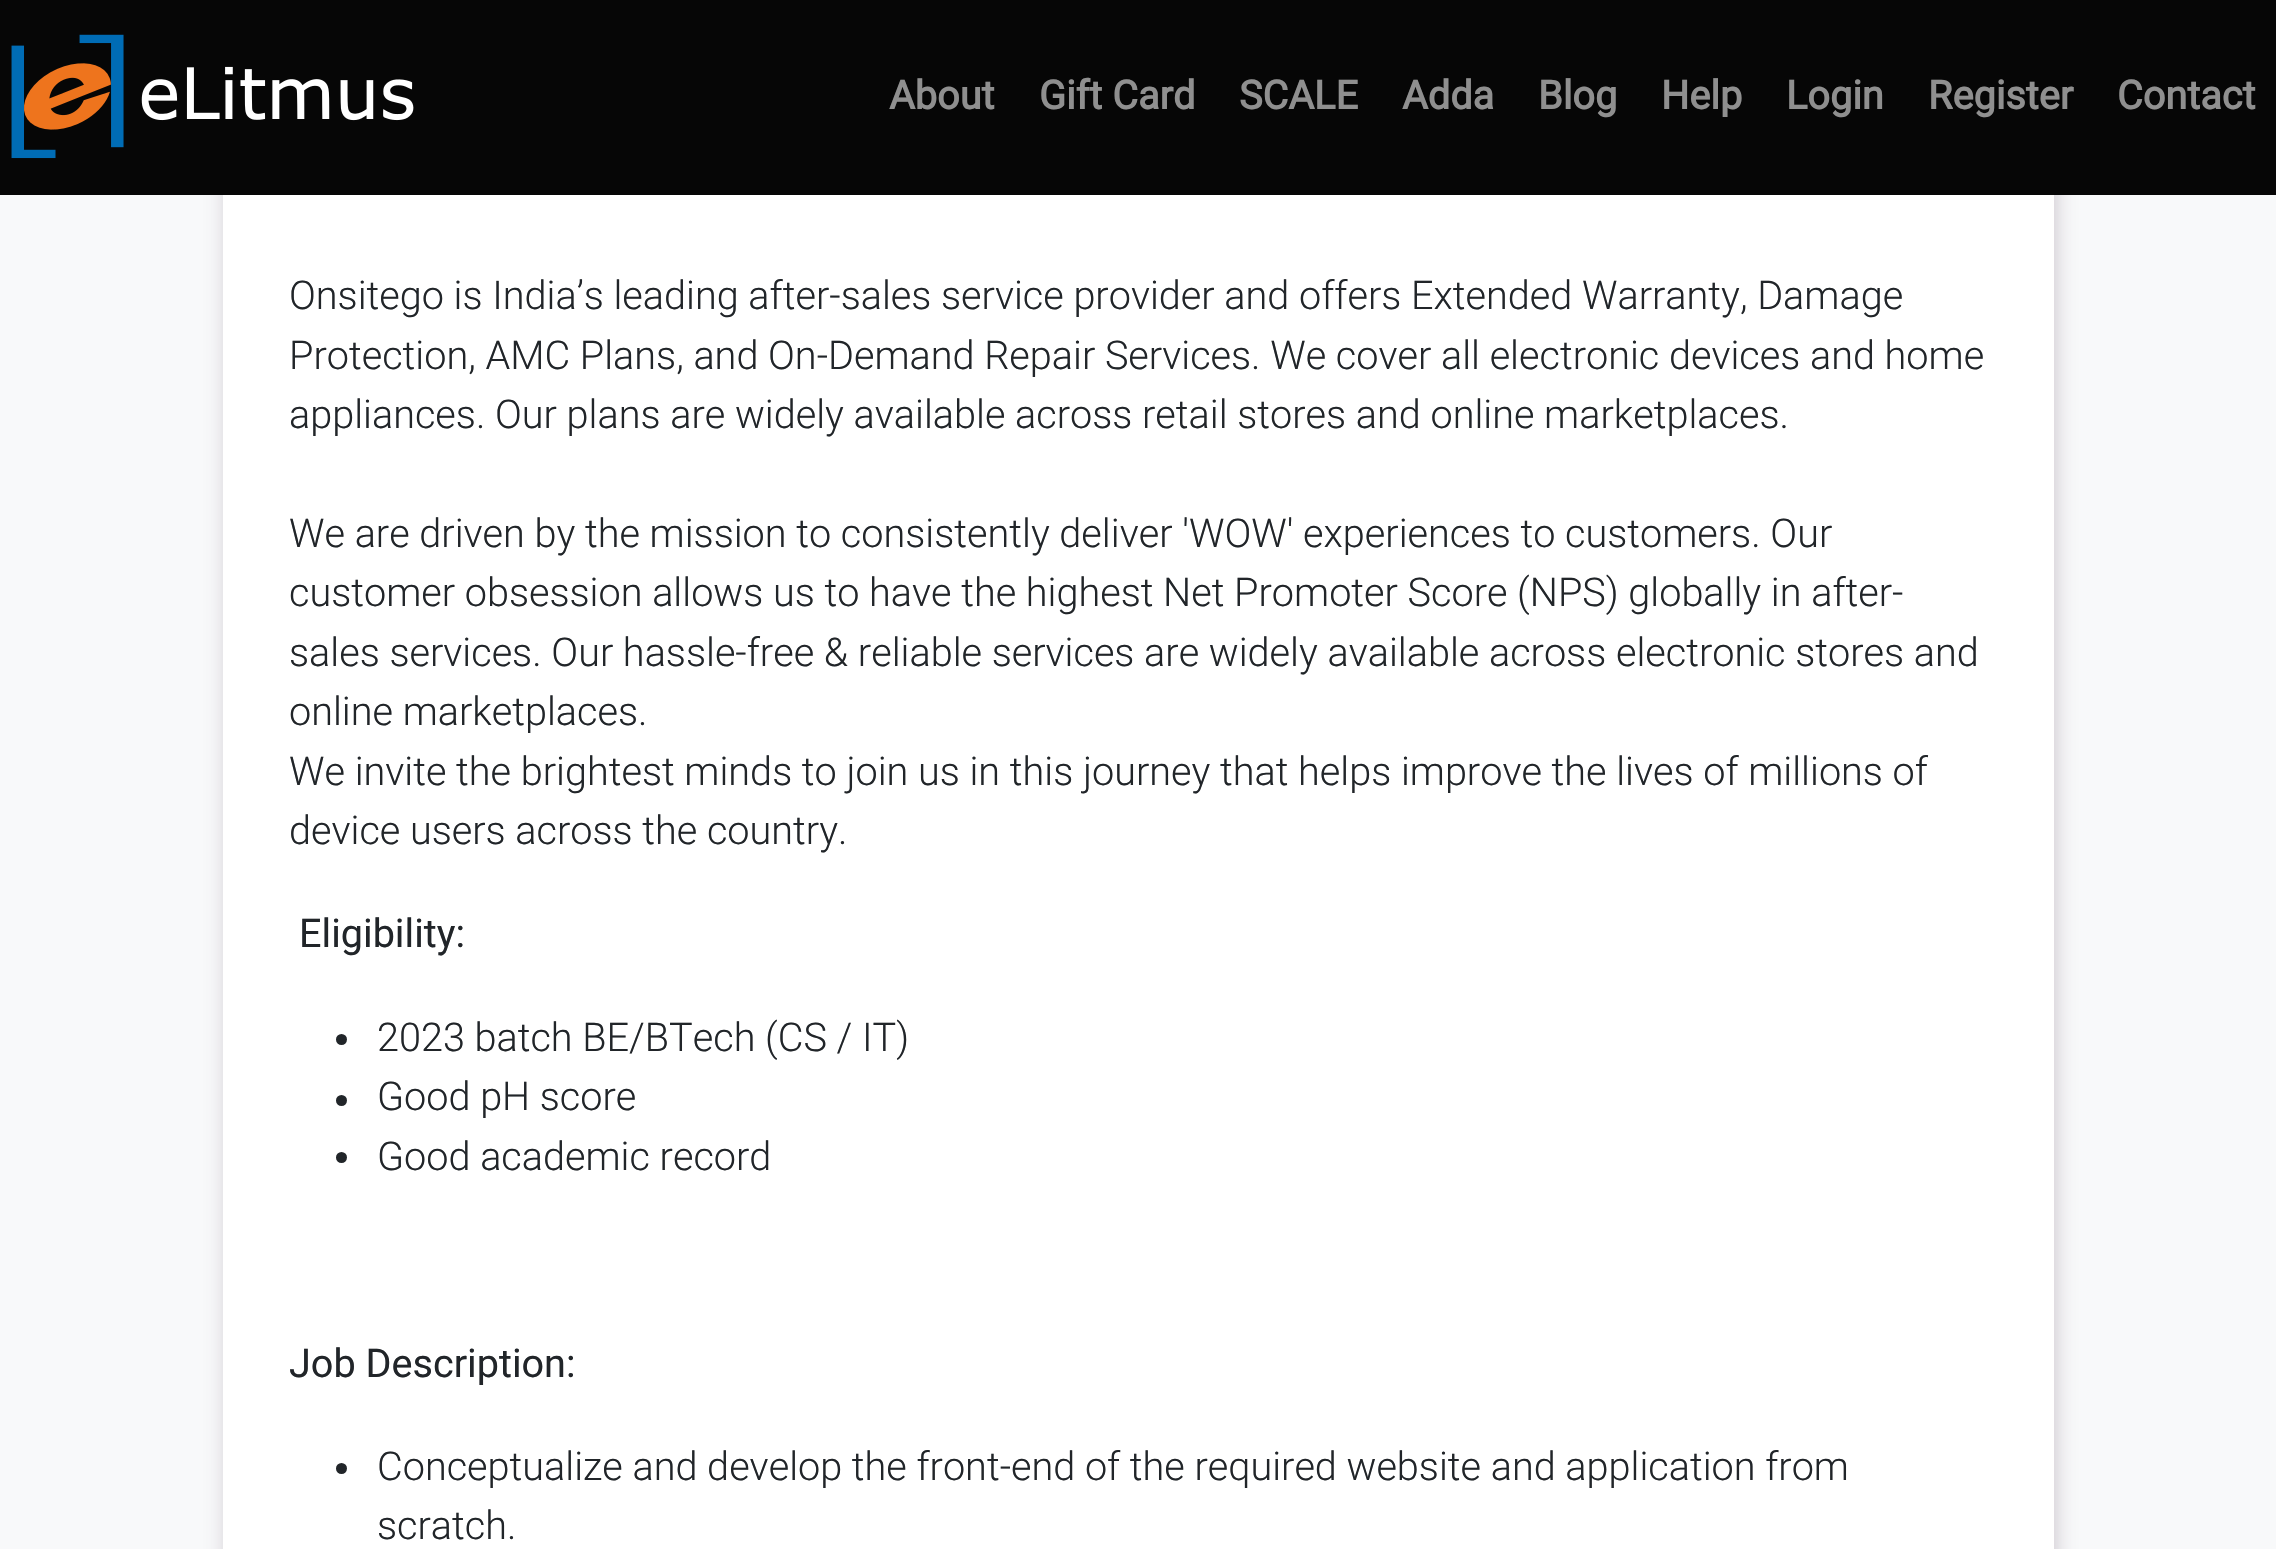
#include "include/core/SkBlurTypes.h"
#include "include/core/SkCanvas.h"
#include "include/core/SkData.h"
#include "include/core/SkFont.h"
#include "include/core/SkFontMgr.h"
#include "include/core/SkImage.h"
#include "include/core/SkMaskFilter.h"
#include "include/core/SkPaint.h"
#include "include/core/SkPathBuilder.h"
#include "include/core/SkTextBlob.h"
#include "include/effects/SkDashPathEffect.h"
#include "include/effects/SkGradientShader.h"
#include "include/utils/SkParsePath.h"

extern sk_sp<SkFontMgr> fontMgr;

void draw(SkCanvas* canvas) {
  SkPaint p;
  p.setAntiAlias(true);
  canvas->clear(SkColorSetRGB(248, 249, 250));
  p.setColor(SkColorSetARGB(115, 138, 120, 138));
  p.setMaskFilter(SkMaskFilter::MakeBlur(kNormal_SkBlurStyle, 11));
  canvas->drawRect(SkRect::MakeLTRB(228, 105, 2054, 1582), p);
  p.setMaskFilter(nullptr);
  p.setColor(SkColorSetRGB(6, 6, 6));
  canvas->drawRect(SkRect::MakeLTRB(0, 0, 2276, 195), p);
  canvas->drawImageRect(SkImages::DeferredFromEncodedData(SkData::MakeFromFileName("images/1.png")), SkRect::MakeLTRB(11, 34, 414, 159), SkSamplingOptions());
  p.setColor(SK_ColorWHITE);
  canvas->drawRect(SkRect::MakeLTRB(223, 195, 2054, 1549), p);
  p.setColor(SkColorSetRGB(33, 37, 41));
  canvas->drawCircle(341.5f, 1039.5f, 5.5f, p);
  canvas->drawCircle(341.5f, 1100.5f, 5.5f, p);
  canvas->drawCircle(341.5f, 1157.5f, 5.5f, p);
  canvas->drawCircle(341.5f, 1468.5f, 5.5f, p);
  SkFont font1(fontMgr->matchFamilyStyle("Roboto", SkFontStyle::Bold()), 39.6f);
  font1.setSubpixel(true);
  p.setColor(SkColorSetRGB(143, 143, 143));
  canvas->drawString("About", 889, 109, font1, p);
  canvas->drawString("Gift Card", 1039, 109, font1, p);
  canvas->drawString("SCALE", 1239, 109, font1, p);
  canvas->drawString("Adda", 1402, 109, font1, p);
  canvas->drawString("Blog", 1538, 109, font1, p);
  canvas->drawString("Help", 1661, 109, font1, p);
  canvas->drawString("Login", 1786, 109, font1, p);
  canvas->drawString("Register", 1928, 109, font1, p);
  canvas->drawString("Contact", 2117, 109, font1, p);
  SkFont font2(fontMgr->matchFamilyStyle("Roboto", SkFontStyle(300, SkFontStyle::kNormal_Width, SkFontStyle::kUpright_Slant)), 39.6f);
  font2.setSubpixel(true);
  p.setColor(SkColorSetRGB(33, 37, 41));
  canvas->drawString("Onsitego is India’s leading after-sales service provider and offers Extended Warranty, Damage", 289, 309, font2, p);
  canvas->drawString("Protection, AMC Plans, and On-Demand Repair Services. We cover all electronic devices and home", 289, 369, font2, p);
  canvas->drawString("appliances. Our plans are widely available across retail stores and online marketplaces.", 289, 428, font2, p);
  canvas->drawString("We are driven by the mission to consistently deliver 'WOW' experiences to customers. Our", 289, 547, font2, p);
  canvas->drawString("customer obsession allows us to have the highest Net Promoter Score (NPS) globally in after-", 289, 606, font2, p);
  canvas->drawString("sales services. Our hassle-free & reliable services are widely available across electronic stores and", 289, 666, font2, p);
  canvas->drawString("online marketplaces.", 289, 725, font2, p);
  canvas->drawString("We invite the brightest minds to join us in this journey that helps improve the lives of millions of", 289, 785, font2, p);
  canvas->drawString("device users across the country.", 289, 844, font2, p);
  SkFont font3(fontMgr->matchFamilyStyle("Roboto", SkFontStyle::Normal()), 39.6f);
  font3.setSubpixel(true);
  canvas->drawString("Eligibility:", 299, 947, font3, p);
  canvas->drawString("2023 batch BE/BTech (CS / IT)", 377, 1051, font2, p);
  canvas->drawString("Good pH score", 377, 1110, font2, p);
  canvas->drawString("Good academic record", 377, 1170, font2, p);
  canvas->drawString("Job Description:", 289, 1377, font3, p);
  canvas->drawString("Conceptualize and develop the front-end of the required website and application from", 377, 1480, font2, p);
  canvas->drawString("scratch.", 377, 1539, font2, p);
}
